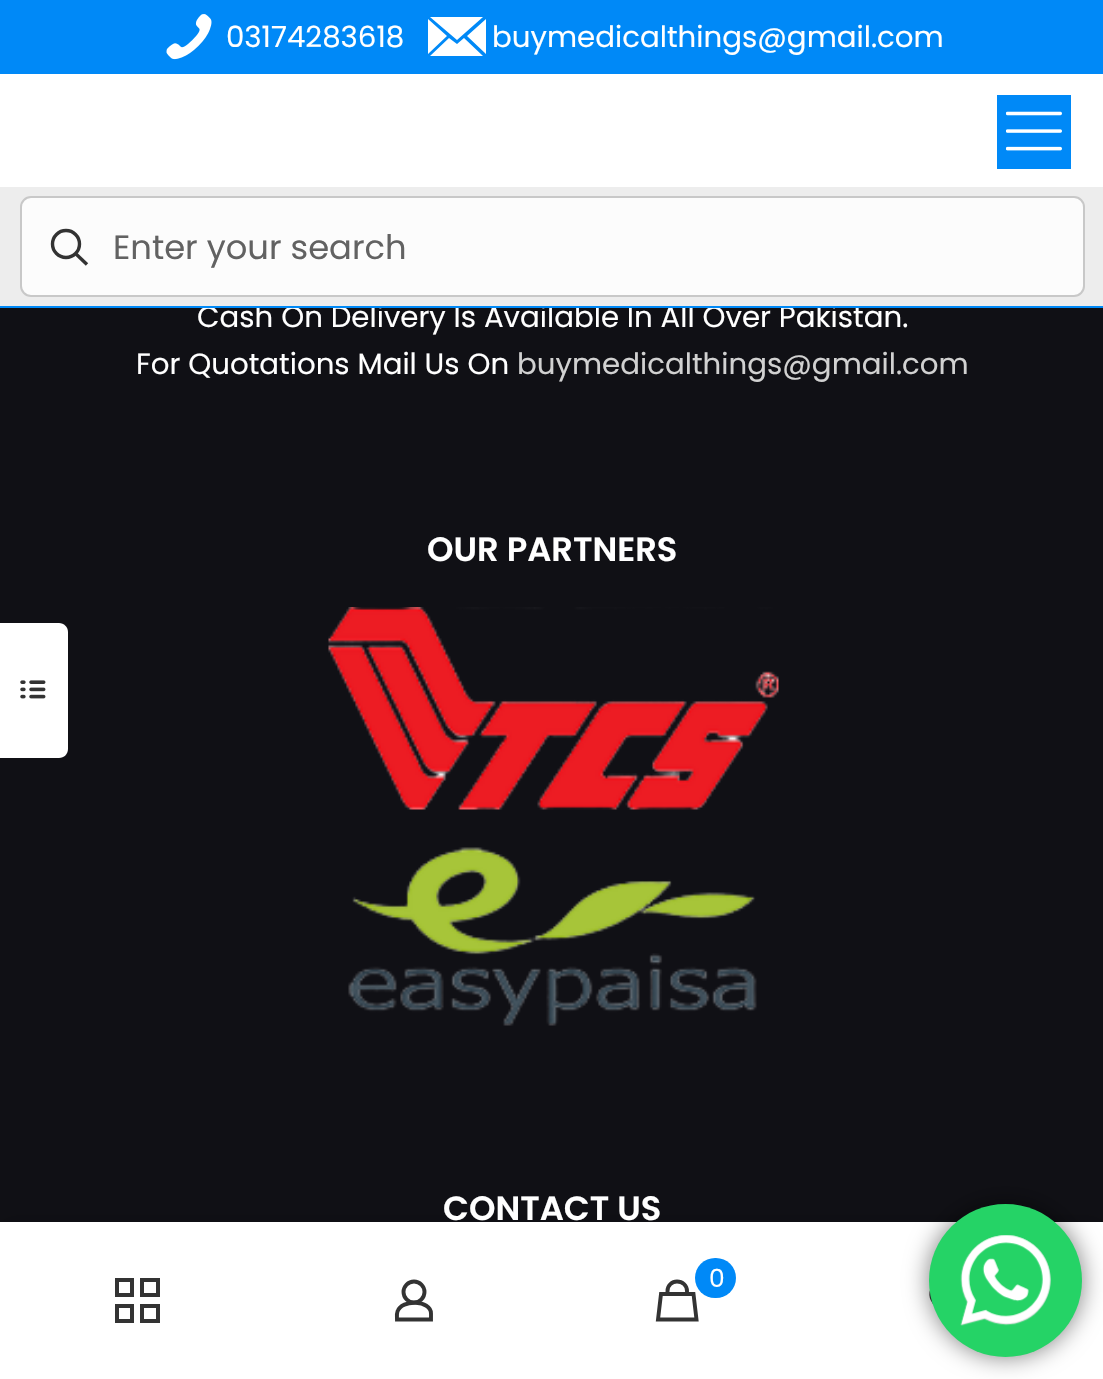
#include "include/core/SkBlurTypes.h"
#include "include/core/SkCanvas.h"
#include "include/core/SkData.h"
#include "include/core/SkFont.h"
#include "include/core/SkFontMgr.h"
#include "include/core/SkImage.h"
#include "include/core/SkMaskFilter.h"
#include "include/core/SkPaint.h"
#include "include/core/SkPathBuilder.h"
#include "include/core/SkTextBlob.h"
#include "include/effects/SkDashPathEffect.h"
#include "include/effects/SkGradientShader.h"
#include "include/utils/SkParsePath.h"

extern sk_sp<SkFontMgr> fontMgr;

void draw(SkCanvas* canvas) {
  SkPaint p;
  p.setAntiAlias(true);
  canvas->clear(SkColorSetRGB(16, 16, 21));
  p.setColor(SK_ColorWHITE);
  canvas->drawPath(SkPathBuilder().moveTo(0, 623).lineTo(59, 623).cubicTo(64, 623, 68, 627, 68, 632).lineTo(68, 749).cubicTo(68, 754, 64, 758, 59, 758).lineTo(0, 758).close().detach(), p);
  canvas->drawImageRect(SkImages::DeferredFromEncodedData(SkData::MakeFromFileName("images/1.png")), SkRect::MakeLTRB(20, 680, 46, 699), SkSamplingOptions());
  p.setColor(SkColorSetRGB(0, 137, 247));
  canvas->drawRect(SkRect::MakeLTRB(0, 0, 1103, 74), p);
  canvas->drawImageRect(SkImages::DeferredFromEncodedData(SkData::MakeFromFileName("images/2.png")), SkRect::MakeLTRB(166, 14, 212, 60), SkSamplingOptions());
  p.setColor(SK_ColorWHITE);
  canvas->drawPath(SkPathBuilder().moveTo(428, 53).lineTo(428, 19).lineTo(447, 36).lineTo(428, 54).close().moveTo(430, 17).lineTo(483, 17).lineTo(457, 40).close().moveTo(430, 56).lineTo(449, 38).lineTo(457, 44).lineTo(464, 38).lineTo(483, 56).close().moveTo(467, 36).lineTo(486, 19).lineTo(486, 54).close().detach(), p);
  canvas->drawRect(SkRect::MakeLTRB(0, 74, 1103, 187), p);
  p.setColor(SkColorSetRGB(0, 137, 247));
  canvas->drawRect(SkRect::MakeLTRB(997, 95, 1071, 169), p);
  canvas->drawImageRect(SkImages::DeferredFromEncodedData(SkData::MakeFromFileName("images/3.png")), SkRect::MakeLTRB(1006, 111, 1062, 151), SkSamplingOptions());
  canvas->drawImageRect(SkImages::DeferredFromEncodedData(SkData::MakeFromFileName("images/4.png")), SkRect::MakeLTRB(328, 607, 779, 810), SkSamplingOptions());
  canvas->drawImageRect(SkImages::DeferredFromEncodedData(SkData::MakeFromFileName("images/5.png")), SkRect::MakeLTRB(348, 847, 757, 1026), SkSamplingOptions());
  p.setColor(SkColorSetARGB(26, 0, 0, 0));
  p.setMaskFilter(SkMaskFilter::MakeBlur(kNormal_SkBlurStyle, 11));
  canvas->drawRect(SkRect::MakeLTRB(0, 1222, 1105, 1379), p);
  p.setMaskFilter(nullptr);
  p.setColor(SK_ColorWHITE);
  canvas->drawRect(SkRect::MakeLTRB(0, 1222, 1103, 1379), p);
  p.setStyle(SkPaint::kStroke_Style);
  p.setStrokeWidth(4);
  p.setColor(SkColorSetRGB(51, 51, 51));
  canvas->drawRect(SkRect::MakeLTRB(142, 1280, 158, 1295), p);
  canvas->drawRect(SkRect::MakeLTRB(117, 1280, 132, 1295), p);
  canvas->drawRect(SkRect::MakeLTRB(117, 1306, 132, 1321), p);
  canvas->drawRect(SkRect::MakeLTRB(142, 1306, 158, 1321), p);
  p.setStrokeWidth(3.9f);
  canvas->drawCircle(414, 1292, 10.5f, p);
  canvas->drawPath(SkPathBuilder().moveTo(431, 1313.5f).lineTo(431, 1319.5f).lineTo(397, 1319.5f).cubicTo(397, 1317, 396.5f, 1314, 397.5f, 1311.5f).cubicTo(401.5f, 1299, 431, 1300, 431, 1313.5f).close().detach(), p);
  canvas->drawPath(SkPathBuilder().moveTo(696.5f, 1319.5f).lineTo(658, 1319.5f).lineTo(661, 1294).lineTo(693.5f, 1294).close().moveTo(667.5f, 1294).lineTo(667.5f, 1291).cubicTo(667.5f, 1285.5f, 672, 1281.5f, 677, 1281.5f).cubicTo(682.5f, 1281.5f, 687, 1285.5f, 687, 1291).lineTo(687, 1294).detach(), p);
  p.setStyle(SkPaint::kFill_Style);
  p.setColor(SkColorSetRGB(0, 137, 247));
  canvas->drawRoundRect(SkRect::MakeLTRB(695, 1258, 736, 1298), 20, 20, p);
  p.setStyle(SkPaint::kStroke_Style);
  p.setColor(SkColorSetRGB(51, 51, 51));
  canvas->drawPath(SkPathBuilder().moveTo(961.5f, 1282.5f).cubicTo(957, 1282.5f, 953.5f, 1285, 952, 1289).cubicTo(944.5f, 1275.5f, 926.5f, 1285.5f, 932.5f, 1299.5f).cubicTo(935.5f, 1306.5f, 945, 1313.5f, 951, 1318.5f).cubicTo(954, 1318.5f, 967, 1305.5f, 968, 1304).lineTo(971, 1299.5f).cubicTo(974.5f, 1291.5f, 970, 1282.5f, 961.5f, 1282.5f).close().detach(), p);
  p.setStyle(SkPaint::kFill_Style);
  p.setColor(SkColorSetARGB(128, 0, 0, 0));
  p.setMaskFilter(SkMaskFilter::MakeBlur(kNormal_SkBlurStyle, 12.5f));
  canvas->drawRoundRect(SkRect::MakeLTRB(929, 1204, 1082, 1357), 76.5f, 76.5f, p);
  p.setMaskFilter(nullptr);
  p.setColor(SkColorSetRGB(37, 211, 102));
  canvas->drawCircle(1005.5f, 1280.5f, 76.5f, p);
  canvas->drawImageRect(SkImages::DeferredFromEncodedData(SkData::MakeFromFileName("images/6.png")), SkRect::MakeLTRB(960, 1235, 1051, 1326), SkSamplingOptions());
  SkFont font1(fontMgr->matchFamilyStyle("Poppins", SkFontStyle::Normal()), 29.25f);
  font1.setSubpixel(true);
  p.setColor(SK_ColorWHITE);
  canvas->drawString("03174283618", 226, 47, font1, p);
  canvas->drawString("buymedicalthings@gmail.com", 492, 47, font1, p);
  canvas->drawString("Cash On Delivery Is Available In All Over Pakistan.", 197, 327, font1, p);
  p.setColor(SkColorSetRGB(237, 237, 237));
  canvas->drawRect(SkRect::MakeLTRB(0, 187, 1103, 306), p);
  p.setColor(SkColorSetRGB(252, 252, 252));
  canvas->drawRoundRect(SkRect::MakeLTRB(21, 197, 1084, 296), 10, 10, p);
  p.setStyle(SkPaint::kStroke_Style);
  p.setStrokeWidth(2);
  p.setColor(SkColorSetRGB(200, 200, 200));
  canvas->drawRoundRect(SkRect::MakeLTRB(21, 197, 1084, 296), 10, 10, p);
  p.setStrokeWidth(3.4f);
  p.setColor(SkColorSetRGB(51, 51, 51));
  canvas->drawCircle(66, 244, 13.5f, p);
  canvas->drawPath(SkPathBuilder().moveTo(75.5f, 253.5f).lineTo(87, 264.5f).detach(), p);
  SkFont font2(fontMgr->matchFamilyStyle("Poppins", SkFontStyle::Normal()), 33.75f);
  font2.setSubpixel(true);
  p.setStyle(SkPaint::kFill_Style);
  p.setColor(SkColorSetRGB(98, 98, 98));
  canvas->drawString("Enter your search", 113, 259, font2, p);
  p.setColor(SkColorSetRGB(0, 137, 247));
  canvas->drawRect(SkRect::MakeLTRB(0, 306, 1103, 308), p);
  p.setColor(SK_ColorWHITE);
  canvas->drawString("For Quotations Mail Us On", 136, 374, font1, p);
  p.setColor(SkColorSetRGB(209, 209, 209));
  canvas->drawString("buymedicalthings@gmail.com", 517, 374, font1, p);
  SkFont font3(fontMgr->matchFamilyStyle("Poppins", SkFontStyle(600, SkFontStyle::kNormal_Width, SkFontStyle::kUpright_Slant)), 33.75f);
  font3.setSubpixel(true);
  p.setColor(SK_ColorWHITE);
  canvas->drawString("OUR PARTNERS", 427, 561, font3, p);
  canvas->drawString("CONTACT US", 443, 1220, font3, p);
  SkFont font4(fontMgr->matchFamilyStyle("Poppins", SkFontStyle::Normal()), 25);
  font4.setSubpixel(true);
  canvas->drawString("0", 709, 1287, font4, p);
}
